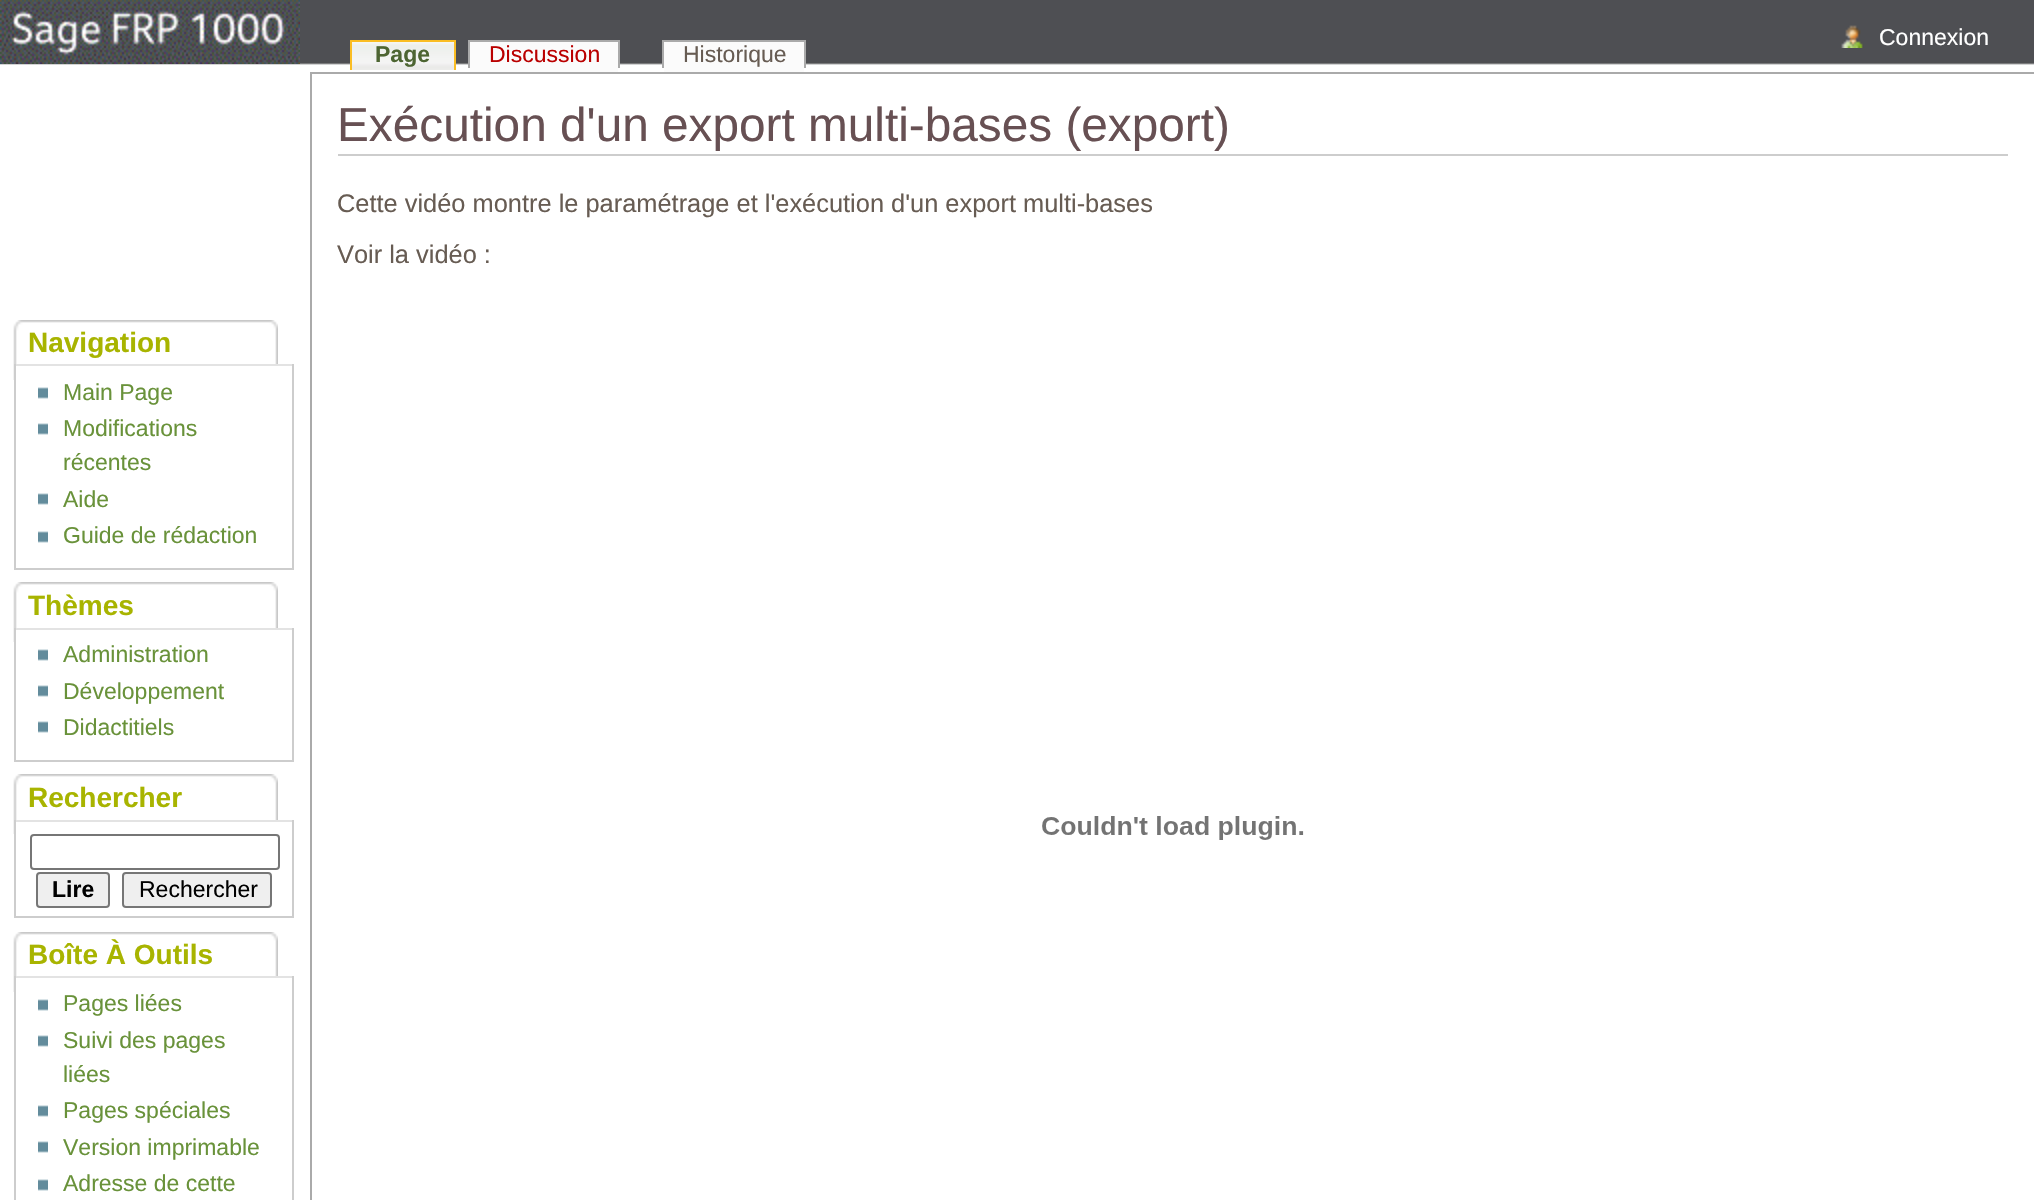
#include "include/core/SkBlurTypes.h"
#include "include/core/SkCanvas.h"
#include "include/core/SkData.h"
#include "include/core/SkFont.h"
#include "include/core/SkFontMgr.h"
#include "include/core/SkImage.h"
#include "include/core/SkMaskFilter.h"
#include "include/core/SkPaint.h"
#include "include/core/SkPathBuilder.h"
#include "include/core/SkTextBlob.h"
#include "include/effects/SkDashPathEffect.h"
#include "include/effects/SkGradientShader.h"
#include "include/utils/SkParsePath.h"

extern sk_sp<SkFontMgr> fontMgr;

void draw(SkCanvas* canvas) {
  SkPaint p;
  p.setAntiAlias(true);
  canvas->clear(SK_ColorWHITE);
  canvas->drawImageRect(SkImages::DeferredFromEncodedData(SkData::MakeFromFileName("images/1.png")), SkRect::MakeLTRB(0, 0, 2034, 1200), SkSamplingOptions());
  canvas->drawImageRect(SkImages::DeferredFromEncodedData(SkData::MakeFromFileName("images/2.png")), SkRect::MakeLTRB(0, 0, 300, 64), SkSamplingOptions());
  canvas->drawImageRect(SkImages::DeferredFromEncodedData(SkData::MakeFromFileName("images/3.png")), SkRect::MakeLTRB(1841, 25, 1864, 48), SkSamplingOptions());
  canvas->drawImageRect(SkImages::DeferredFromEncodedData(SkData::MakeFromFileName("images/4.png")), SkRect::MakeLTRB(352, 42, 454, 70), SkSamplingOptions());
  p.setColor(SkColorSetRGB(170, 170, 170));
  canvas->drawRect(SkRect::MakeLTRB(468, 40, 620, 42), p);
  canvas->drawRect(SkRect::MakeLTRB(618, 40, 620, 68), p);
  canvas->drawRect(SkRect::MakeLTRB(468, 40, 470, 68), p);
  p.setColor(SkColorSetRGB(251, 251, 251));
  canvas->drawRect(SkRect::MakeLTRB(470, 42, 618, 72), p);
  p.setColor(SkColorSetRGB(170, 170, 170));
  canvas->drawRect(SkRect::MakeLTRB(662, 40, 806, 42), p);
  canvas->drawRect(SkRect::MakeLTRB(804, 40, 806, 68), p);
  canvas->drawRect(SkRect::MakeLTRB(662, 40, 664, 68), p);
  p.setColor(SkColorSetRGB(251, 251, 251));
  canvas->drawRect(SkRect::MakeLTRB(664, 42, 804, 72), p);
  p.setColor(SkColorSetRGB(250, 189, 35));
  canvas->drawRect(SkRect::MakeLTRB(350, 40, 456, 42), p);
  canvas->drawRect(SkRect::MakeLTRB(454, 40, 456, 70), p);
  canvas->drawRect(SkRect::MakeLTRB(350, 40, 352, 70), p);
  canvas->drawImageRect(SkImages::DeferredFromEncodedData(SkData::MakeFromFileName("images/5.png")), SkRect::MakeLTRB(13, 320, 278, 380), SkSamplingOptions());
  p.setColor(SK_ColorWHITE);
  canvas->drawRect(SkRect::MakeLTRB(16, 366, 278, 380), p);
  p.setColor(SkColorSetRGB(227, 227, 227));
  canvas->drawRect(SkRect::MakeLTRB(14, 364, 294, 366), p);
  p.setColor(SkColorSetRGB(205, 205, 205));
  canvas->drawRect(SkRect::MakeLTRB(292, 364, 294, 570), p);
  canvas->drawRect(SkRect::MakeLTRB(14, 568, 294, 570), p);
  canvas->drawRect(SkRect::MakeLTRB(14, 364, 16, 570), p);
  canvas->drawImageRect(SkImages::DeferredFromEncodedData(SkData::MakeFromFileName("images/6.png")), SkRect::MakeLTRB(38, 387, 48, 399), SkSamplingOptions());
  canvas->drawImageRect(SkImages::DeferredFromEncodedData(SkData::MakeFromFileName("images/6.png")), SkRect::MakeLTRB(38, 423, 48, 435), SkSamplingOptions());
  canvas->drawImageRect(SkImages::DeferredFromEncodedData(SkData::MakeFromFileName("images/6.png")), SkRect::MakeLTRB(38, 493, 48, 505), SkSamplingOptions());
  canvas->drawImageRect(SkImages::DeferredFromEncodedData(SkData::MakeFromFileName("images/6.png")), SkRect::MakeLTRB(38, 531, 48, 543), SkSamplingOptions());
  canvas->drawImageRect(SkImages::DeferredFromEncodedData(SkData::MakeFromFileName("images/5.png")), SkRect::MakeLTRB(13, 582, 278, 642), SkSamplingOptions());
  p.setColor(SK_ColorWHITE);
  canvas->drawRect(SkRect::MakeLTRB(16, 630, 278, 642), p);
  p.setColor(SkColorSetRGB(227, 227, 227));
  canvas->drawRect(SkRect::MakeLTRB(14, 628, 294, 630), p);
  p.setColor(SkColorSetRGB(205, 205, 205));
  canvas->drawRect(SkRect::MakeLTRB(292, 628, 294, 762), p);
  canvas->drawRect(SkRect::MakeLTRB(14, 760, 294, 762), p);
  canvas->drawRect(SkRect::MakeLTRB(14, 628, 16, 762), p);
  canvas->drawImageRect(SkImages::DeferredFromEncodedData(SkData::MakeFromFileName("images/6.png")), SkRect::MakeLTRB(38, 649, 48, 661), SkSamplingOptions());
  canvas->drawImageRect(SkImages::DeferredFromEncodedData(SkData::MakeFromFileName("images/6.png")), SkRect::MakeLTRB(38, 685, 48, 697), SkSamplingOptions());
  canvas->drawImageRect(SkImages::DeferredFromEncodedData(SkData::MakeFromFileName("images/6.png")), SkRect::MakeLTRB(38, 721, 48, 733), SkSamplingOptions());
  canvas->drawImageRect(SkImages::DeferredFromEncodedData(SkData::MakeFromFileName("images/5.png")), SkRect::MakeLTRB(13, 774, 278, 834), SkSamplingOptions());
  p.setColor(SK_ColorWHITE);
  canvas->drawRect(SkRect::MakeLTRB(16, 822, 278, 834), p);
  p.setColor(SkColorSetRGB(227, 227, 227));
  canvas->drawRect(SkRect::MakeLTRB(14, 820, 294, 822), p);
  p.setColor(SkColorSetRGB(205, 205, 205));
  canvas->drawRect(SkRect::MakeLTRB(292, 820, 294, 918), p);
  canvas->drawRect(SkRect::MakeLTRB(14, 916, 294, 918), p);
  canvas->drawRect(SkRect::MakeLTRB(14, 820, 16, 918), p);
  p.setStyle(SkPaint::kStroke_Style);
  p.setStrokeWidth(2);
  p.setColor(SkColorSetRGB(118, 118, 118));
  canvas->drawRoundRect(SkRect::MakeLTRB(31, 835, 279, 869), 3, 3, p);
  p.setStyle(SkPaint::kFill_Style);
  p.setColor(SkColorSetRGB(239, 239, 239));
  canvas->drawRoundRect(SkRect::MakeLTRB(37, 873, 109, 907), 3, 3, p);
  p.setStyle(SkPaint::kStroke_Style);
  p.setColor(SkColorSetRGB(118, 118, 118));
  canvas->drawRoundRect(SkRect::MakeLTRB(37, 873, 109, 907), 3, 3, p);
  p.setStyle(SkPaint::kFill_Style);
  p.setColor(SkColorSetRGB(239, 239, 239));
  canvas->drawRoundRect(SkRect::MakeLTRB(123, 873, 271, 907), 3, 3, p);
  p.setStyle(SkPaint::kStroke_Style);
  p.setColor(SkColorSetRGB(118, 118, 118));
  canvas->drawRoundRect(SkRect::MakeLTRB(123, 873, 271, 907), 3, 3, p);
  canvas->drawImageRect(SkImages::DeferredFromEncodedData(SkData::MakeFromFileName("images/5.png")), SkRect::MakeLTRB(13, 932, 278, 992), SkSamplingOptions());
  p.setStyle(SkPaint::kFill_Style);
  p.setColor(SK_ColorWHITE);
  canvas->drawRect(SkRect::MakeLTRB(16, 978, 278, 992), p);
  p.setColor(SkColorSetRGB(227, 227, 227));
  canvas->drawRect(SkRect::MakeLTRB(14, 976, 294, 978), p);
  p.setColor(SkColorSetRGB(205, 205, 205));
  canvas->drawRect(SkRect::MakeLTRB(292, 976, 294, 1200), p);
  canvas->drawRect(SkRect::MakeLTRB(14, 976, 16, 1200), p);
  canvas->drawImageRect(SkImages::DeferredFromEncodedData(SkData::MakeFromFileName("images/6.png")), SkRect::MakeLTRB(38, 999, 48, 1011), SkSamplingOptions());
  canvas->drawImageRect(SkImages::DeferredFromEncodedData(SkData::MakeFromFileName("images/6.png")), SkRect::MakeLTRB(38, 1035, 48, 1047), SkSamplingOptions());
  canvas->drawImageRect(SkImages::DeferredFromEncodedData(SkData::MakeFromFileName("images/6.png")), SkRect::MakeLTRB(38, 1105, 48, 1117), SkSamplingOptions());
  canvas->drawImageRect(SkImages::DeferredFromEncodedData(SkData::MakeFromFileName("images/6.png")), SkRect::MakeLTRB(38, 1141, 48, 1153), SkSamplingOptions());
  canvas->drawImageRect(SkImages::DeferredFromEncodedData(SkData::MakeFromFileName("images/6.png")), SkRect::MakeLTRB(38, 1179, 48, 1191), SkSamplingOptions());
  p.setColor(SkColorSetRGB(170, 170, 170));
  canvas->drawRect(SkRect::MakeLTRB(310, 72, 2034, 74), p);
  canvas->drawRect(SkRect::MakeLTRB(310, 72, 312, 1200), p);
  p.setColor(SkColorSetRGB(205, 205, 205));
  canvas->drawRect(SkRect::MakeLTRB(338, 154, 2008, 156), p);
  canvas->drawImageRect(SkImages::DeferredFromEncodedData(SkData::MakeFromFileName("images/7.png")), SkRect::MakeLTRB(1042, 816, 1304, 840), SkSamplingOptions());
  SkFont font1(fontMgr->matchFamilyStyle("Liberation Sans", SkFontStyle::Normal()), 23);
  font1.setSubpixel(true);
  p.setColor(SK_ColorWHITE);
  canvas->drawString("Connexion", 1879, 45, font1, p);
  p.setColor(SkColorSetRGB(186, 0, 0));
  canvas->drawString("Discussion", 489, 62, font1, p);
  p.setColor(SkColorSetRGB(103, 92, 83));
  canvas->drawString("Historique", 683, 62, font1, p);
  SkFont font2(fontMgr->matchFamilyStyle("Liberation Sans", SkFontStyle::Bold()), 23);
  font2.setSubpixel(true);
  p.setColor(SkColorSetRGB(77, 101, 50));
  canvas->drawString("Page", 375, 62, font2, p);
  SkFont font3(fontMgr->matchFamilyStyle("Liberation Sans", SkFontStyle::Bold()), 28);
  font3.setSubpixel(true);
  p.setColor(SkColorSetRGB(168, 180, 0));
  canvas->drawString("Navigation", 28, 352, font3, p);
  p.setColor(SkColorSetRGB(105, 146, 58));
  canvas->drawString("Main Page", 63, 400, font1, p);
  canvas->drawString("Modifications", 63, 436, font1, p);
  canvas->drawString("récentes", 63, 470, font1, p);
  canvas->drawString("Aide", 63, 507, font1, p);
  canvas->drawString("Guide de rédaction", 63, 543, font1, p);
  p.setColor(SkColorSetRGB(168, 180, 0));
  canvas->drawString("Thèmes", 28, 615, font3, p);
  p.setColor(SkColorSetRGB(105, 146, 58));
  canvas->drawString("Administration", 63, 662, font1, p);
  canvas->drawString("Développement", 63, 699, font1, p);
  canvas->drawString("Didactitiels", 63, 735, font1, p);
  p.setColor(SkColorSetRGB(168, 180, 0));
  canvas->drawString("Rechercher", 28, 807, font3, p);
  p.setColor(SK_ColorBLACK);
  canvas->drawString("Lire", 52, 897, font2, p);
  canvas->drawString("Rechercher", 139, 897, font1, p);
  p.setColor(SkColorSetRGB(168, 180, 0));
  canvas->drawString("Boîte À Outils", 28, 964, font3, p);
  p.setColor(SkColorSetRGB(105, 146, 58));
  canvas->drawString("Pages liées", 63, 1011, font1, p);
  canvas->drawString("Suivi des pages", 63, 1048, font1, p);
  canvas->drawString("liées", 63, 1082, font1, p);
  canvas->drawString("Pages spéciales", 63, 1118, font1, p);
  canvas->drawString("Version imprimable", 63, 1155, font1, p);
  canvas->drawString("Adresse de cette", 63, 1191, font1, p);
  SkFont font4(fontMgr->matchFamilyStyle("Liberation Sans", SkFontStyle::Normal()), 47.75f);
  font4.setSubpixel(true);
  p.setColor(SkColorSetRGB(103, 80, 83));
  canvas->drawString("Exécution d'un export multi-bases (export)", 337, 141, font4, p);
  SkFont font5(fontMgr->matchFamilyStyle("Liberation Sans", SkFontStyle::Normal()), 25.4f);
  font5.setSubpixel(true);
  p.setColor(SkColorSetRGB(103, 92, 83));
  canvas->drawString("Cette vidéo montre le paramétrage et l'exécution d'un export multi-bases", 337, 212, font5, p);
  canvas->drawString("Voir la vidéo :", 337, 263, font5, p);
}
